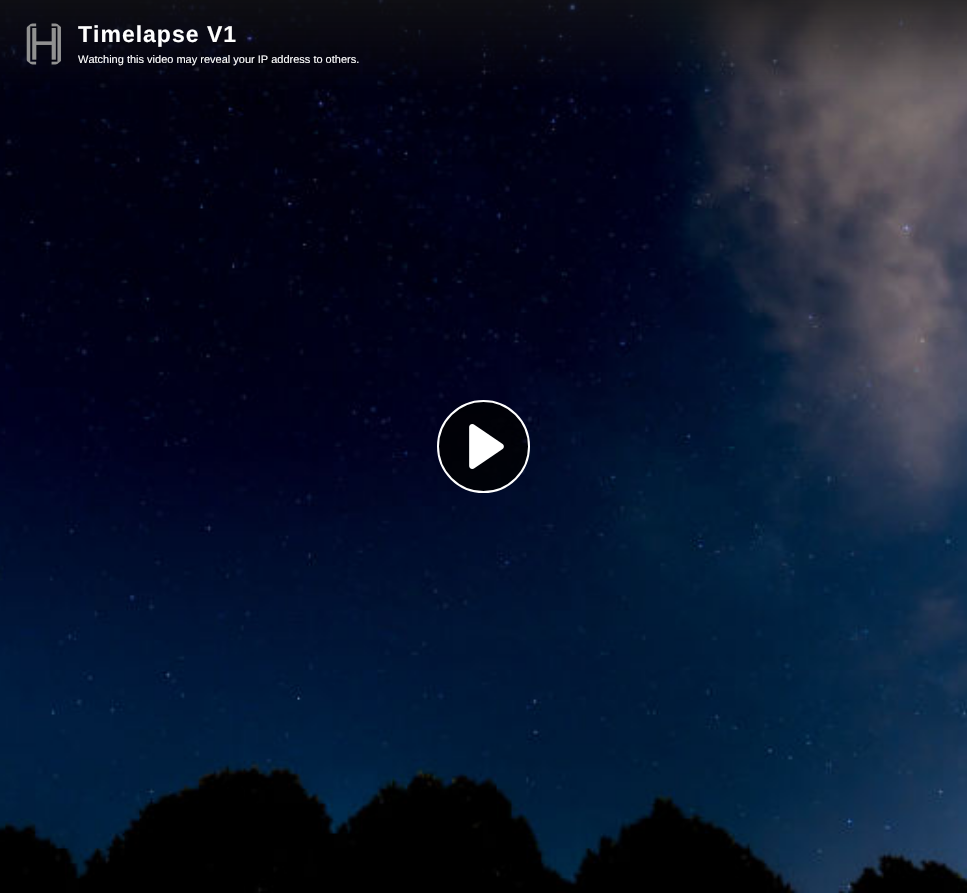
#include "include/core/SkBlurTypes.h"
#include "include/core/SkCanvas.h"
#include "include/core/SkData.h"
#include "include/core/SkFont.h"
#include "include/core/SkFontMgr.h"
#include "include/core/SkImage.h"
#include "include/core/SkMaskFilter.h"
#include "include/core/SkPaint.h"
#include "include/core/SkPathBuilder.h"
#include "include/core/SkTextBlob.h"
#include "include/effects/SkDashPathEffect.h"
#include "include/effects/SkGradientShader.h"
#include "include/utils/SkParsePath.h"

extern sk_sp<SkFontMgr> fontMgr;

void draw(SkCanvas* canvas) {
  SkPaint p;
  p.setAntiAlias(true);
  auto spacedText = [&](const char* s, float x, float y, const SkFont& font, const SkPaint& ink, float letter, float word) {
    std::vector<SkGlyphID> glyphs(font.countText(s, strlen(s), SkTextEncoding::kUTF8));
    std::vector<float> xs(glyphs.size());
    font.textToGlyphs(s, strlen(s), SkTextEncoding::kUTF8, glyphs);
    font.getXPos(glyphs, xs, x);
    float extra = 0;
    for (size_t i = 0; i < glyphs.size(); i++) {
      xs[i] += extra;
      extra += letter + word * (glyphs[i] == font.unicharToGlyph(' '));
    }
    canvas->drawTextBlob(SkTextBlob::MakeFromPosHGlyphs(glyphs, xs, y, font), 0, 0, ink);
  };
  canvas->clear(SK_ColorWHITE);
  canvas->drawImageRect(SkImages::DeferredFromEncodedData(SkData::MakeFromFileName("images/1.png")), SkRect::MakeLTRB(0, 0, 967, 893), SkSamplingOptions());
  canvas->drawImageRect(SkImages::DeferredFromEncodedData(SkData::MakeFromFileName("images/2.png")), SkRect::MakeLTRB(26, 23, 61, 65), SkSamplingOptions());
  p.setColor(SkColorSetARGB(204, 0, 0, 0));
  canvas->drawCircle(483.5f, 446.5f, 45.5f, p);
  p.setStyle(SkPaint::kStroke_Style);
  p.setStrokeWidth(2);
  p.setColor(SK_ColorWHITE);
  canvas->drawCircle(483.5f, 446.5f, 45.5f, p);
  canvas->drawImageRect(SkImages::DeferredFromEncodedData(SkData::MakeFromFileName("images/3.png")), SkRect::MakeLTRB(469, 424, 504, 469), SkSamplingOptions());
  SkFont font1(fontMgr->matchFamilyStyle("Liberation Sans", SkFontStyle::Bold()), 23);
  font1.setSubpixel(true);
  p.setStyle(SkPaint::kFill_Style);
  spacedText("Timelapse V1", 78, 42, font1, p, 1, 0);
  SkFont font2(fontMgr->matchFamilyStyle("Liberation Sans", SkFontStyle::Normal()), 11);
  font2.setSubpixel(true);
  canvas->drawString("Watching this video may reveal your IP address to others.", 78, 63, font2, p);
}
